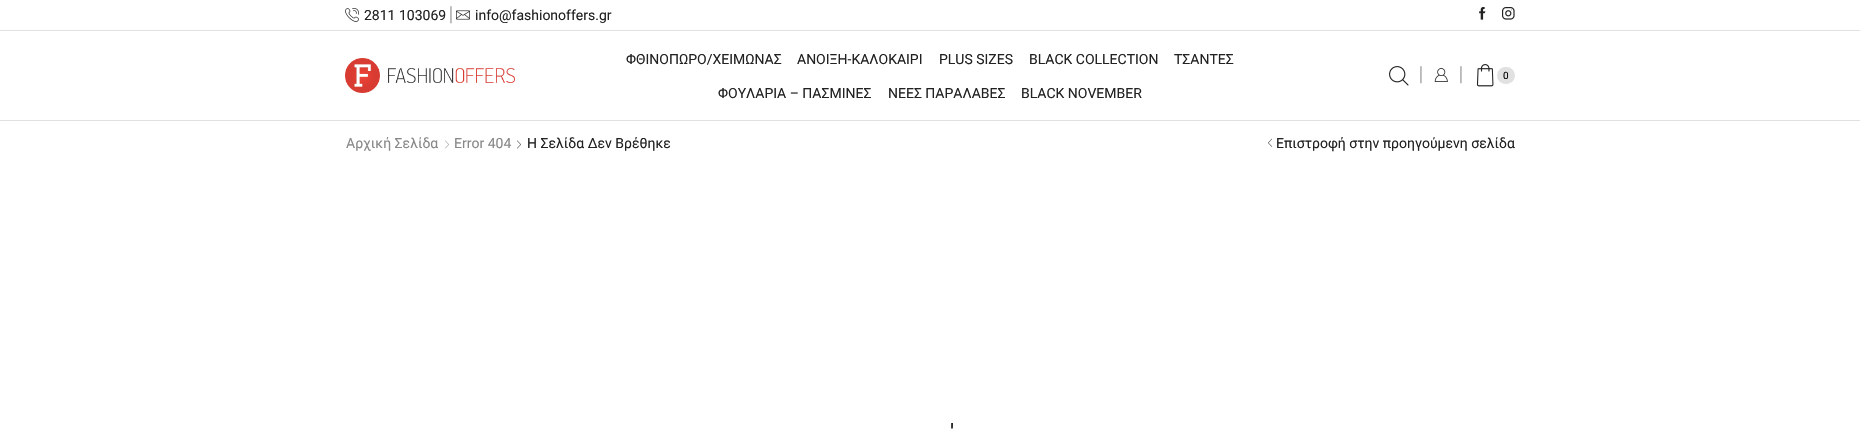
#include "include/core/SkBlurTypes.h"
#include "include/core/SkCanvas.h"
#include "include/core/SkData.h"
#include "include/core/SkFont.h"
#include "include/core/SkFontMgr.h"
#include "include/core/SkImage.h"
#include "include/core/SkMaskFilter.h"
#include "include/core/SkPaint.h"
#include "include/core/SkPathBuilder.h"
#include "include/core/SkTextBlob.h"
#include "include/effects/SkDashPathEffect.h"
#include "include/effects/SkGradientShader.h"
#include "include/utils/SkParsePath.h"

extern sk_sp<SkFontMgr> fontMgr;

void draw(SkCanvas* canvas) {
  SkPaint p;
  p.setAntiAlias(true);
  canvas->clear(SK_ColorWHITE);
  p.setColor(SkColorSetRGB(225, 225, 225));
  canvas->drawRect(SkRect::MakeLTRB(0, 30, 1860, 31), p);
  canvas->drawImageRect(SkImages::DeferredFromEncodedData(SkData::MakeFromFileName("images/1.png")), SkRect::MakeLTRB(345, 8, 359, 22), SkSamplingOptions());
  canvas->drawImageRect(SkImages::DeferredFromEncodedData(SkData::MakeFromFileName("images/2.png")), SkRect::MakeLTRB(456, 10, 470, 20), SkSamplingOptions());
  canvas->drawImageRect(SkImages::DeferredFromEncodedData(SkData::MakeFromFileName("images/3.png")), SkRect::MakeLTRB(1479, 7, 1486, 20), SkSamplingOptions());
  canvas->drawImageRect(SkImages::DeferredFromEncodedData(SkData::MakeFromFileName("images/4.png")), SkRect::MakeLTRB(1502, 7, 1515, 20), SkSamplingOptions());
  canvas->drawRect(SkRect::MakeLTRB(0, 120, 1860, 121), p);
  canvas->drawImageRect(SkImages::DeferredFromEncodedData(SkData::MakeFromFileName("images/5.png")), SkRect::MakeLTRB(345, 58, 515, 93), SkSamplingOptions());
  canvas->drawImageRect(SkImages::DeferredFromEncodedData(SkData::MakeFromFileName("images/6.png")), SkRect::MakeLTRB(1389, 66, 1409, 86), SkSamplingOptions());
  canvas->drawImageRect(SkImages::DeferredFromEncodedData(SkData::MakeFromFileName("images/7.png")), SkRect::MakeLTRB(1434, 68, 1448, 82), SkSamplingOptions());
  canvas->drawImageRect(SkImages::DeferredFromEncodedData(SkData::MakeFromFileName("images/8.png")), SkRect::MakeLTRB(1476, 64, 1494, 87), SkSamplingOptions());
  canvas->drawRoundRect(SkRect::MakeLTRB(1497, 67, 1515, 84), 8.5f, 8.5f, p);
  canvas->drawImageRect(SkImages::DeferredFromEncodedData(SkData::MakeFromFileName("images/9.png")), SkRect::MakeLTRB(445, 140, 449, 149), SkSamplingOptions());
  canvas->drawImageRect(SkImages::DeferredFromEncodedData(SkData::MakeFromFileName("images/10.png")), SkRect::MakeLTRB(517, 140, 521, 149), SkSamplingOptions());
  canvas->drawImageRect(SkImages::DeferredFromEncodedData(SkData::MakeFromFileName("images/11.png")), SkRect::MakeLTRB(1268, 138, 1272, 147), SkSamplingOptions());
  SkFont font1(fontMgr->matchFamilyStyle("Roboto", SkFontStyle::Normal()), 14);
  font1.setSubpixel(true);
  p.setColor(SkColorSetRGB(34, 34, 34));
  canvas->drawString("2811 103069", 364, 20, font1, p);
  SkFont font2(fontMgr->matchFamilyStyle("Liberation Serif", SkFontStyle::Normal()), 14);
  font2.setSubpixel(true);
  p.setColor(SkColorSetRGB(145, 145, 145));
  canvas->drawString("│", 446, 19, font2, p);
  p.setColor(SkColorSetRGB(34, 34, 34));
  canvas->drawString("info@fashionoffers.gr", 475, 20, font1, p);
  canvas->drawString("ΦΘΙΝΟΠΩΡΟ/ΧΕΙΜΩΝΑΣ", 626, 64, font1, p);
  canvas->drawString("ΑΝΟΙΞΗ-ΚΑΛΟΚΑΙΡΙ", 797, 64, font1, p);
  canvas->drawString("PLUS SIZES", 939, 64, font1, p);
  canvas->drawString("BLACK COLLECTION", 1029, 64, font1, p);
  canvas->drawString("ΤΣΑΝΤΕΣ", 1174, 64, font1, p);
  canvas->drawString("ΦΟΥΛΑΡΙΑ – ΠΑΣΜΙΝΕΣ", 718, 98, font1, p);
  canvas->drawString("ΝΕΕΣ ΠΑΡΑΛΑΒΕΣ", 888, 98, font1, p);
  canvas->drawString("BLACK NOVEMBER", 1021, 98, font1, p);
  p.setColor(SkColorSetRGB(145, 145, 145));
  canvas->drawString("│", 1416, 79, font2, p);
  canvas->drawString("│", 1456, 79, font2, p);
  SkFont font3(fontMgr->matchFamilyStyle("Roboto", SkFontStyle::Normal()), 10);
  font3.setSubpixel(true);
  p.setColor(SK_ColorBLACK);
  canvas->drawString("0", 1503, 79, font3, p);
  p.setColor(SkColorSetRGB(136, 136, 136));
  canvas->drawString("Αρχική Σελίδα", 346, 148, font1, p);
  canvas->drawString("Error 404", 454, 148, font1, p);
  p.setColor(SkColorSetRGB(34, 34, 34));
  canvas->drawString("Η Σελίδα Δεν Βρέθηκε", 527, 148, font1, p);
  canvas->drawString("Επιστροφή στην προηγούμενη σελίδα", 1276, 148, font1, p);
  SkFont font4(fontMgr->matchFamilyStyle("Roboto Condensed", SkFontStyle::Normal()), 24);
  font4.setSubpixel(true);
  canvas->drawString("'", 950, 441, font4, p);
}
